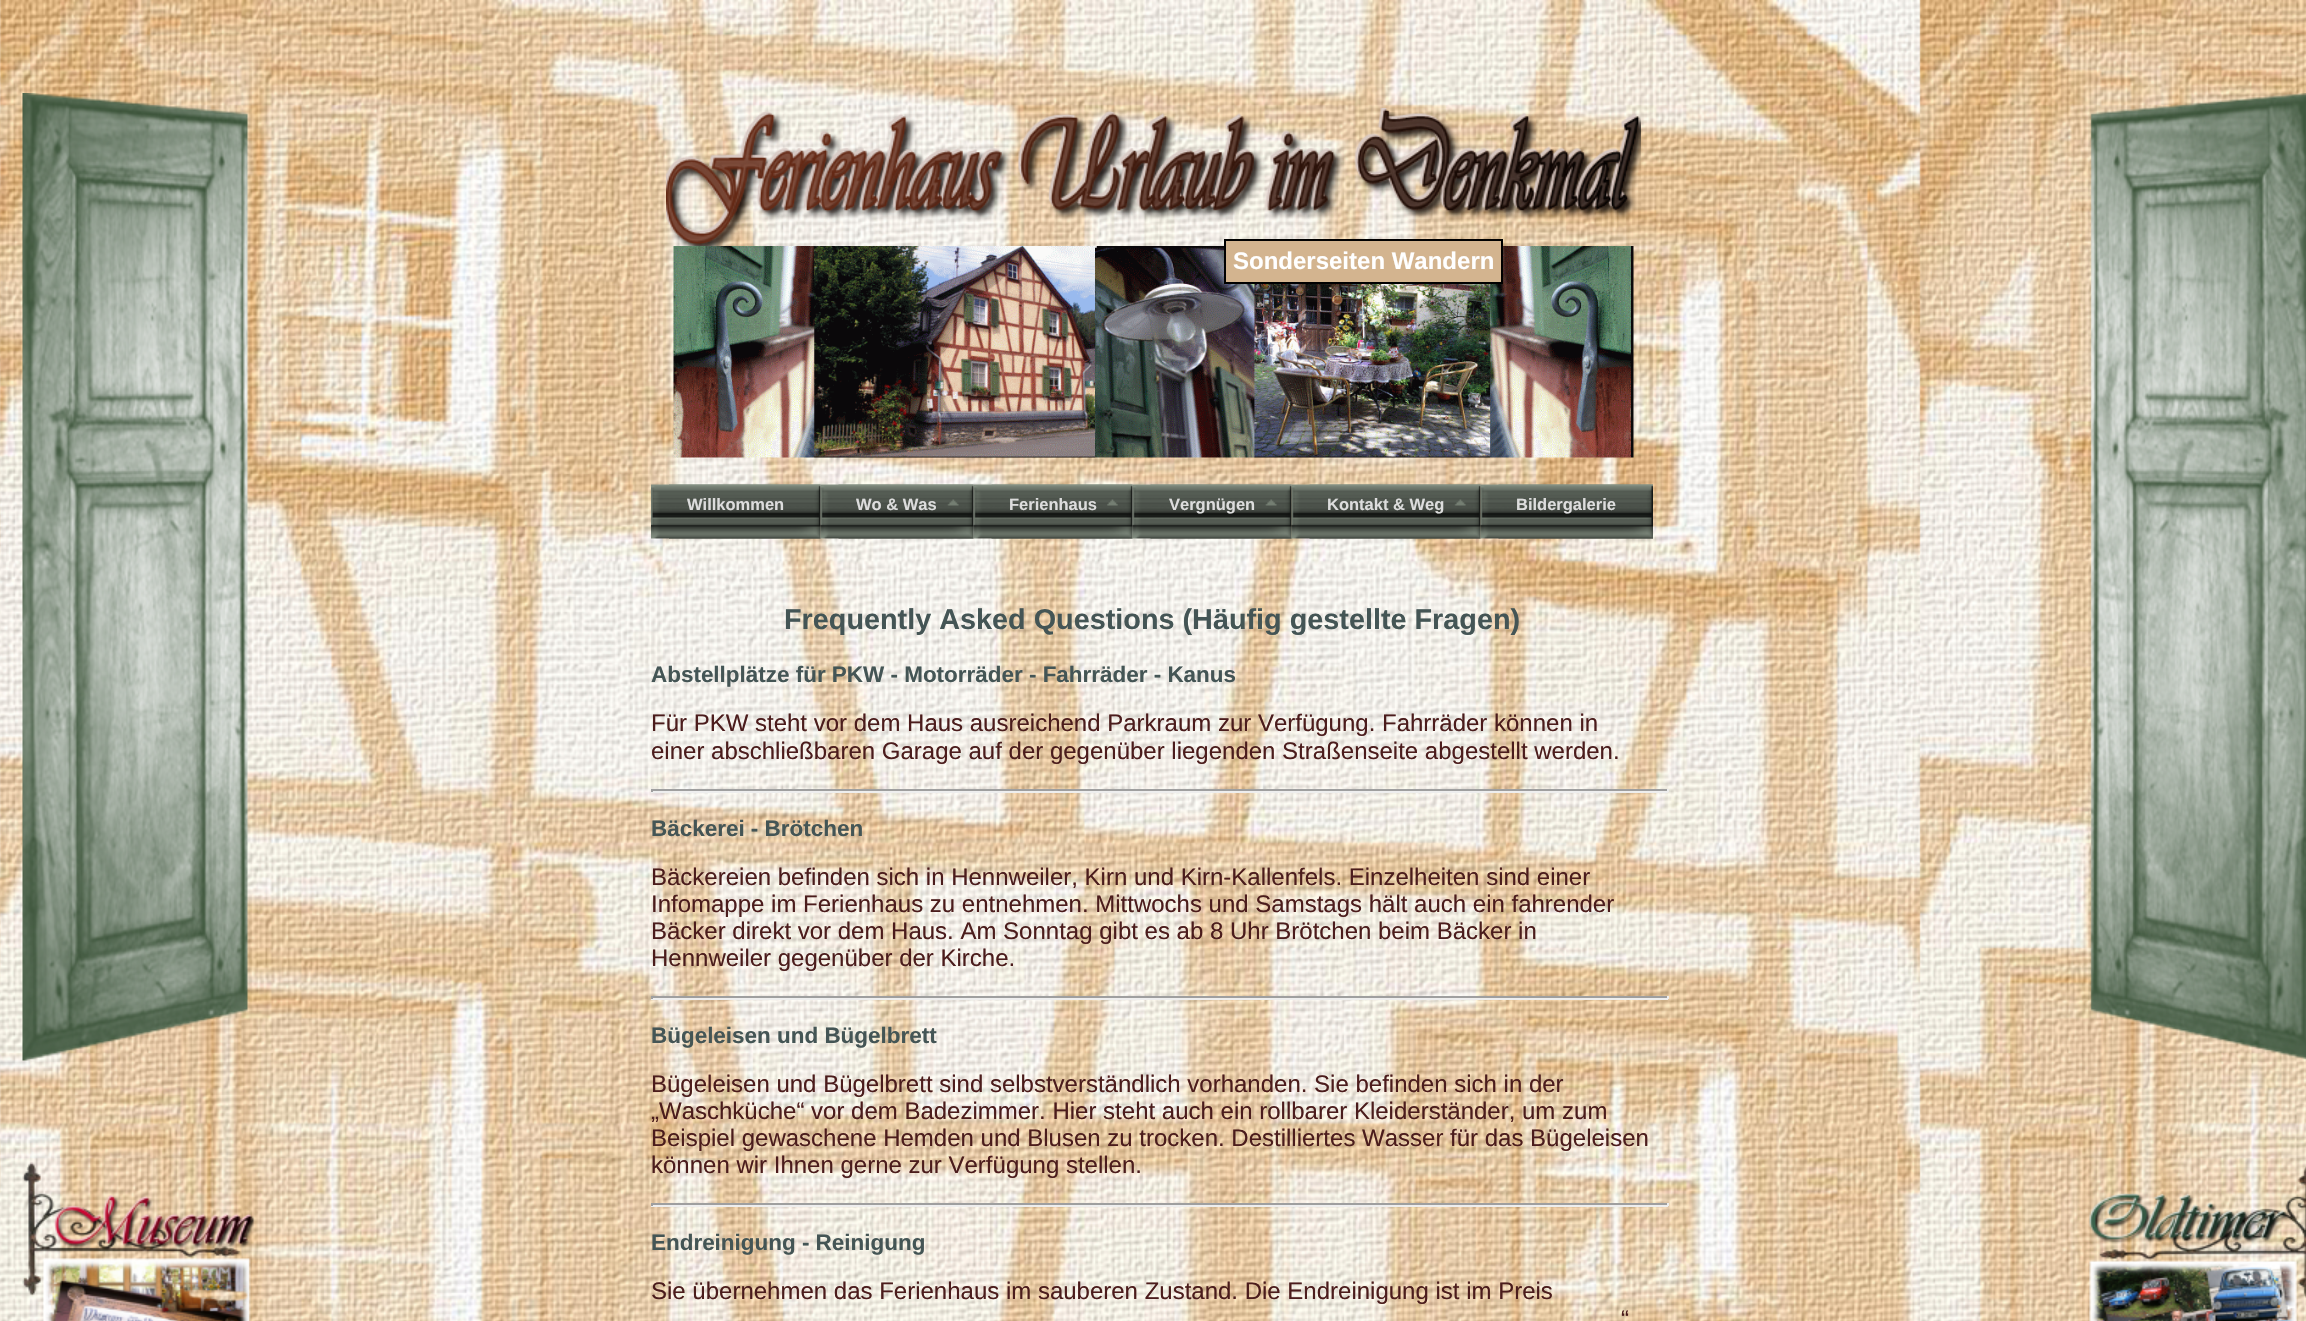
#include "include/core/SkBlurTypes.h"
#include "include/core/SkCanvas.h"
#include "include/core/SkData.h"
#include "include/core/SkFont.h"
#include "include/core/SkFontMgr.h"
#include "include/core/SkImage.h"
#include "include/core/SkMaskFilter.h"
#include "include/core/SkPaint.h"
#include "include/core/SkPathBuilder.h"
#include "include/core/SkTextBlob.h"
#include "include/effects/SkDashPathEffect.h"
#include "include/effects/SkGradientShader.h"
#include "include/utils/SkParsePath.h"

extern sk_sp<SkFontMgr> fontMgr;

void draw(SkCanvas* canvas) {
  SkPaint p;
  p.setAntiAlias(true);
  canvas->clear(SK_ColorWHITE);
  canvas->drawImageRect(SkImages::DeferredFromEncodedData(SkData::MakeFromFileName("images/1.png")), SkRect::MakeLTRB(0, 0, 2306, 1321), SkSamplingOptions());
  canvas->drawImageRect(SkImages::DeferredFromEncodedData(SkData::MakeFromFileName("images/2.png")), SkRect::MakeLTRB(22, 93, 249, 1061), SkSamplingOptions());
  canvas->drawImageRect(SkImages::DeferredFromEncodedData(SkData::MakeFromFileName("images/3.png")), SkRect::MakeLTRB(2088, 93, 2306, 1060), SkSamplingOptions());
  canvas->drawImageRect(SkImages::DeferredFromEncodedData(SkData::MakeFromFileName("images/4.png")), SkRect::MakeLTRB(22, 1162, 255, 1321), SkSamplingOptions());
  canvas->drawImageRect(SkImages::DeferredFromEncodedData(SkData::MakeFromFileName("images/5.png")), SkRect::MakeLTRB(2089, 1166, 2306, 1321), SkSamplingOptions());
  canvas->drawImageRect(SkImages::DeferredFromEncodedData(SkData::MakeFromFileName("images/6.png")), SkRect::MakeLTRB(666, 108, 1641, 246), SkSamplingOptions());
  canvas->drawImageRect(SkImages::DeferredFromEncodedData(SkData::MakeFromFileName("images/7.png")), SkRect::MakeLTRB(673, 246, 1634, 458), SkSamplingOptions());
  p.setColor(SkColorSetRGB(211, 180, 143));
  canvas->drawRect(SkRect::MakeLTRB(1225, 240, 1502, 283), p);
  p.setStyle(SkPaint::kStroke_Style);
  p.setStrokeWidth(2);
  p.setColor(SK_ColorBLACK);
  canvas->drawRect(SkRect::MakeLTRB(1225, 240, 1502, 283), p);
  canvas->drawImageRect(SkImages::DeferredFromEncodedData(SkData::MakeFromFileName("images/8.png")), SkRect::MakeLTRB(651, 484, 821, 539), SkSamplingOptions());
  canvas->drawImageRect(SkImages::DeferredFromEncodedData(SkData::MakeFromFileName("images/9.png")), SkRect::MakeLTRB(669, 484, 821, 539), SkSamplingOptions());
  canvas->drawImageRect(SkImages::DeferredFromEncodedData(SkData::MakeFromFileName("images/10.png")), SkRect::MakeLTRB(820, 484, 974, 539), SkSamplingOptions());
  canvas->drawImageRect(SkImages::DeferredFromEncodedData(SkData::MakeFromFileName("images/11.png")), SkRect::MakeLTRB(838, 484, 974, 539), SkSamplingOptions());
  canvas->drawImageRect(SkImages::DeferredFromEncodedData(SkData::MakeFromFileName("images/12.png")), SkRect::MakeLTRB(973, 484, 1133, 539), SkSamplingOptions());
  canvas->drawImageRect(SkImages::DeferredFromEncodedData(SkData::MakeFromFileName("images/13.png")), SkRect::MakeLTRB(991, 484, 1133, 539), SkSamplingOptions());
  canvas->drawImageRect(SkImages::DeferredFromEncodedData(SkData::MakeFromFileName("images/14.png")), SkRect::MakeLTRB(1132, 484, 1292, 539), SkSamplingOptions());
  canvas->drawImageRect(SkImages::DeferredFromEncodedData(SkData::MakeFromFileName("images/15.png")), SkRect::MakeLTRB(1150, 484, 1292, 539), SkSamplingOptions());
  canvas->drawImageRect(SkImages::DeferredFromEncodedData(SkData::MakeFromFileName("images/16.png")), SkRect::MakeLTRB(1291, 484, 1481, 539), SkSamplingOptions());
  canvas->drawImageRect(SkImages::DeferredFromEncodedData(SkData::MakeFromFileName("images/17.png")), SkRect::MakeLTRB(1309, 484, 1481, 539), SkSamplingOptions());
  canvas->drawImageRect(SkImages::DeferredFromEncodedData(SkData::MakeFromFileName("images/18.png")), SkRect::MakeLTRB(1480, 484, 1653, 539), SkSamplingOptions());
  canvas->drawImageRect(SkImages::DeferredFromEncodedData(SkData::MakeFromFileName("images/19.png")), SkRect::MakeLTRB(1498, 484, 1653, 539), SkSamplingOptions());
  p.setStyle(SkPaint::kFill_Style);
  p.setColor(SkColorSetRGB(159, 159, 159));
  canvas->drawRect(SkRect::MakeLTRB(651, 789, 1668, 791), p);
  p.setColor(SkColorSetRGB(238, 238, 238));
  canvas->drawRect(SkRect::MakeLTRB(1667, 789, 1669, 792), p);
  canvas->drawRect(SkRect::MakeLTRB(651, 791, 1668, 793), p);
  p.setColor(SkColorSetRGB(159, 159, 159));
  canvas->drawRect(SkRect::MakeLTRB(651, 789, 653, 792), p);
  canvas->drawRect(SkRect::MakeLTRB(651, 996, 1668, 998), p);
  p.setColor(SkColorSetRGB(238, 238, 238));
  canvas->drawRect(SkRect::MakeLTRB(1667, 996, 1669, 999), p);
  canvas->drawRect(SkRect::MakeLTRB(651, 998, 1668, 1000), p);
  p.setColor(SkColorSetRGB(159, 159, 159));
  canvas->drawRect(SkRect::MakeLTRB(651, 996, 653, 999), p);
  canvas->drawRect(SkRect::MakeLTRB(651, 1203, 1668, 1205), p);
  p.setColor(SkColorSetRGB(238, 238, 238));
  canvas->drawRect(SkRect::MakeLTRB(1667, 1203, 1669, 1206), p);
  canvas->drawRect(SkRect::MakeLTRB(651, 1205, 1668, 1207), p);
  p.setColor(SkColorSetRGB(159, 159, 159));
  canvas->drawRect(SkRect::MakeLTRB(651, 1203, 653, 1206), p);
  SkFont font1(fontMgr->matchFamilyStyle("Liberation Sans", SkFontStyle::Bold()), 24);
  font1.setSubpixel(true);
  p.setColor(SK_ColorWHITE);
  canvas->drawString("Sonderseiten Wandern", 1233, 269, font1, p);
  SkFont font2(fontMgr->matchFamilyStyle("Liberation Sans", SkFontStyle::Bold()), 16.5f);
  font2.setSubpixel(true);
  p.setColor(SkColorSetRGB(221, 221, 221));
  canvas->drawString("Willkommen", 687, 510, font2, p);
  canvas->drawString("Wo & Was", 856, 510, font2, p);
  canvas->drawString("Ferienhaus", 1009, 510, font2, p);
  canvas->drawString("Vergnügen", 1169, 510, font2, p);
  canvas->drawString("Kontakt & Weg", 1327, 510, font2, p);
  canvas->drawString("Bildergalerie", 1516, 510, font2, p);
  SkFont font3(fontMgr->matchFamilyStyle("Liberation Sans", SkFontStyle::Bold()), 28.8f);
  font3.setSubpixel(true);
  p.setColor(SkColorSetRGB(68, 85, 85));
  canvas->drawString("Frequently Asked Questions (Häufig gestellte Fragen)", 784, 629, font3, p);
  SkFont font4(fontMgr->matchFamilyStyle("Liberation Sans", SkFontStyle::Bold()), 22.45f);
  font4.setSubpixel(true);
  canvas->drawString("Abstellplätze für PKW - Motorräder - Fahrräder - Kanus", 651, 682, font4, p);
  SkFont font5(fontMgr->matchFamilyStyle("Liberation Sans", SkFontStyle::Normal()), 24);
  font5.setSubpixel(true);
  p.setColor(SkColorSetRGB(75, 28, 28));
  canvas->drawString("Für PKW steht vor dem Haus ausreichend Parkraum zur Verfügung. Fahrräder können in", 651, 731, font5, p);
  canvas->drawString("einer abschließbaren Garage auf der gegenüber liegenden Straßenseite abgestellt werden.", 651, 759, font5, p);
  p.setColor(SkColorSetRGB(68, 85, 85));
  canvas->drawString("Bäckerei - Brötchen", 651, 836, font4, p);
  p.setColor(SkColorSetRGB(75, 28, 28));
  canvas->drawString("Bäckereien befinden sich in Hennweiler, Kirn und Kirn-Kallenfels. Einzelheiten sind einer", 651, 885, font5, p);
  canvas->drawString("Infomappe im Ferienhaus zu entnehmen. Mittwochs und Samstags hält auch ein fahrender", 651, 912, font5, p);
  canvas->drawString("Bäcker direkt vor dem Haus. Am Sonntag gibt es ab 8 Uhr Brötchen beim Bäcker in", 651, 939, font5, p);
  canvas->drawString("Hennweiler gegenüber der Kirche.", 651, 966, font5, p);
  p.setColor(SkColorSetRGB(68, 85, 85));
  canvas->drawString("Bügeleisen und Bügelbrett", 651, 1043, font4, p);
  p.setColor(SkColorSetRGB(75, 28, 28));
  canvas->drawString("Bügeleisen und Bügelbrett sind selbstverständlich vorhanden. Sie befinden sich in der", 651, 1092, font5, p);
  canvas->drawString("„Waschküche“ vor dem Badezimmer. Hier steht auch ein rollbarer Kleiderständer, um zum", 651, 1119, font5, p);
  canvas->drawString("Beispiel gewaschene Hemden und Blusen zu trocken. Destilliertes Wasser für das Bügeleisen", 651, 1146, font5, p);
  canvas->drawString("können wir Ihnen gerne zur Verfügung stellen.", 651, 1173, font5, p);
  p.setColor(SkColorSetRGB(68, 85, 85));
  canvas->drawString("Endreinigung - Reinigung", 651, 1250, font4, p);
  p.setColor(SkColorSetRGB(75, 28, 28));
  canvas->drawString("Sie übernehmen das Ferienhaus im sauberen Zustand. Die Endreinigung ist im Preis", 651, 1299, font5, p);
  canvas->drawString("“", 1621, 1327, font5, p);
}
